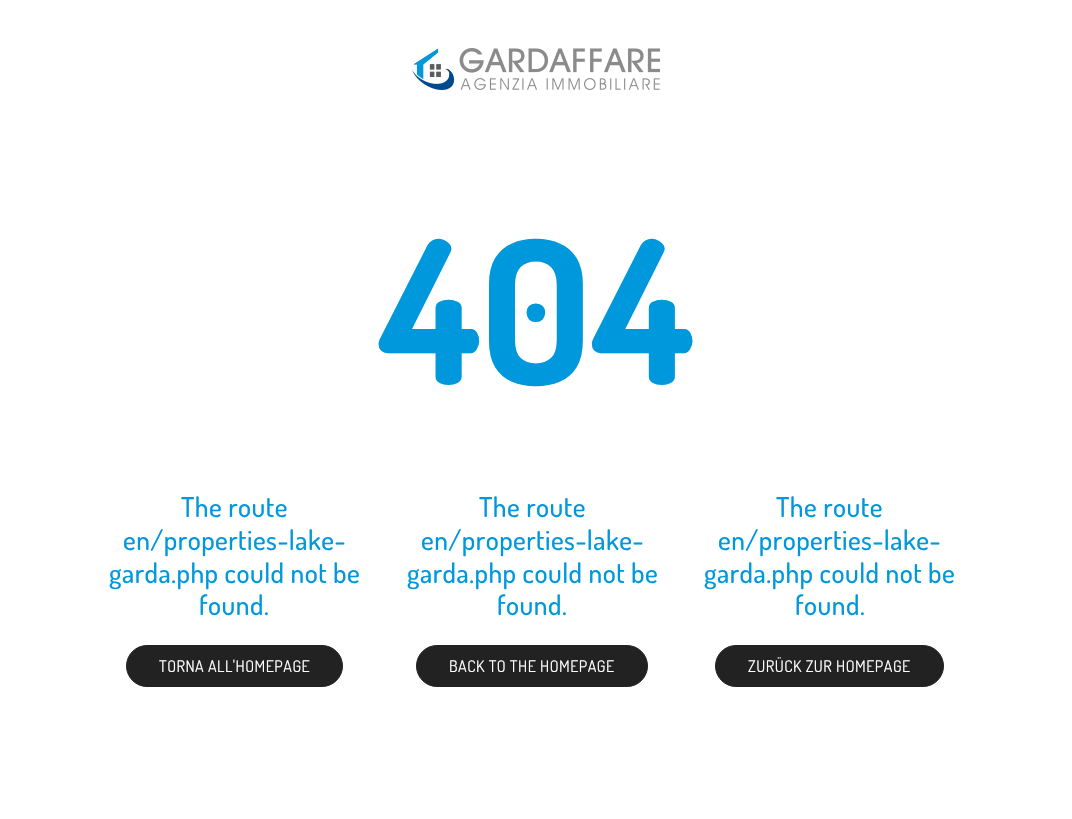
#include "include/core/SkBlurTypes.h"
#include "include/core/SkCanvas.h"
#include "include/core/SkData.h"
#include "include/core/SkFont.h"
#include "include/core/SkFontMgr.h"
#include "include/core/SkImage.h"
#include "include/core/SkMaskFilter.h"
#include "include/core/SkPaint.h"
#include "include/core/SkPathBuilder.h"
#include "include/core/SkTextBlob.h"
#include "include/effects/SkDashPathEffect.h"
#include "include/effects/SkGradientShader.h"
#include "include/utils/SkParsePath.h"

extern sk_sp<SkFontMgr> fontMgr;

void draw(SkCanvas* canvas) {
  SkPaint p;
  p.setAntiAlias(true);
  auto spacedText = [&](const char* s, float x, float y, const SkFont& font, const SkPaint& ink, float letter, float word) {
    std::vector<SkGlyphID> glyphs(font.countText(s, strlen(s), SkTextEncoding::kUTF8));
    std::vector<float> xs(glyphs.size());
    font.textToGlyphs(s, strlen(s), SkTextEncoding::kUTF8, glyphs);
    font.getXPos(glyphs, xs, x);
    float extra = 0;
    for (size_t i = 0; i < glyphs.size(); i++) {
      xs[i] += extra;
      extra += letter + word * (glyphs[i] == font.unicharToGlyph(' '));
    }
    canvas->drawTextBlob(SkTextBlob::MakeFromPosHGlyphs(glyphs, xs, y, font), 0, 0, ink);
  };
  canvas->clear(SK_ColorWHITE);
  canvas->drawImageRect(SkImages::DeferredFromEncodedData(SkData::MakeFromFileName("images/1.png")), SkRect::MakeLTRB(412, 48, 660, 90), SkSamplingOptions());
  p.setColor(SkColorSetRGB(34, 34, 34));
  canvas->drawRoundRect(SkRect::MakeLTRB(126.5f, 645.5f, 342.5f, 686.5f), 20.5f, 20.5f, p);
  p.setStyle(SkPaint::kStroke_Style);
  p.setStrokeWidth(1);
  canvas->drawRoundRect(SkRect::MakeLTRB(126.5f, 645.5f, 342.5f, 686.5f), 20.5f, 20.5f, p);
  p.setStyle(SkPaint::kFill_Style);
  canvas->drawRoundRect(SkRect::MakeLTRB(416.5f, 645.5f, 647.5f, 686.5f), 20.5f, 20.5f, p);
  p.setStyle(SkPaint::kStroke_Style);
  canvas->drawRoundRect(SkRect::MakeLTRB(416.5f, 645.5f, 647.5f, 686.5f), 20.5f, 20.5f, p);
  p.setStyle(SkPaint::kFill_Style);
  canvas->drawRoundRect(SkRect::MakeLTRB(715.5f, 645.5f, 943.5f, 686.5f), 20.5f, 20.5f, p);
  p.setStyle(SkPaint::kStroke_Style);
  canvas->drawRoundRect(SkRect::MakeLTRB(715.5f, 645.5f, 943.5f, 686.5f), 20.5f, 20.5f, p);
  SkFont font1(fontMgr->matchFamilyStyle("Dosis", SkFontStyle::Bold()), 200);
  font1.setSubpixel(true);
  p.setStyle(SkPaint::kFill_Style);
  p.setColor(SkColorSetRGB(0, 152, 221));
  spacedText("404", 379, 385, font1, p, 0.5f, 0);
  SkFont font2(fontMgr->matchFamilyStyle("Dosis", SkFontStyle(500, SkFontStyle::kNormal_Width, SkFontStyle::kUpright_Slant)), 27.25f);
  font2.setSubpixel(true);
  spacedText("The route", 181, 517, font2, p, 0.5f, 0);
  spacedText("en/properties-lake-", 123, 550, font2, p, 0.5f, 0);
  spacedText("garda.php could not be", 109, 583, font2, p, 0.5f, 0);
  spacedText("found.", 199, 615, font2, p, 0.5f, 0);
  SkFont font3(fontMgr->matchFamilyStyle("Dosis", SkFontStyle::Normal()), 16);
  font3.setSubpixel(true);
  p.setColor(SK_ColorWHITE);
  spacedText("TORNA ALL'HOMEPAGE", 159, 672, font3, p, 0.5f, 0);
  p.setColor(SkColorSetRGB(0, 152, 221));
  spacedText("The route", 479, 517, font2, p, 0.5f, 0);
  spacedText("en/properties-lake-", 421, 550, font2, p, 0.5f, 0);
  spacedText("garda.php could not be", 407, 583, font2, p, 0.5f, 0);
  spacedText("found.", 497, 615, font2, p, 0.5f, 0);
  p.setColor(SK_ColorWHITE);
  spacedText("BACK TO THE HOMEPAGE", 449, 672, font3, p, 0.5f, 0);
  p.setColor(SkColorSetRGB(0, 152, 221));
  spacedText("The route", 776, 517, font2, p, 0.5f, 0);
  spacedText("en/properties-lake-", 718, 550, font2, p, 0.5f, 0);
  spacedText("garda.php could not be", 704, 583, font2, p, 0.5f, 0);
  spacedText("found.", 795, 615, font2, p, 0.5f, 0);
  p.setColor(SK_ColorWHITE);
  spacedText("ZURÜCK ZUR HOMEPAGE", 748, 672, font3, p, 0.5f, 0);
}
